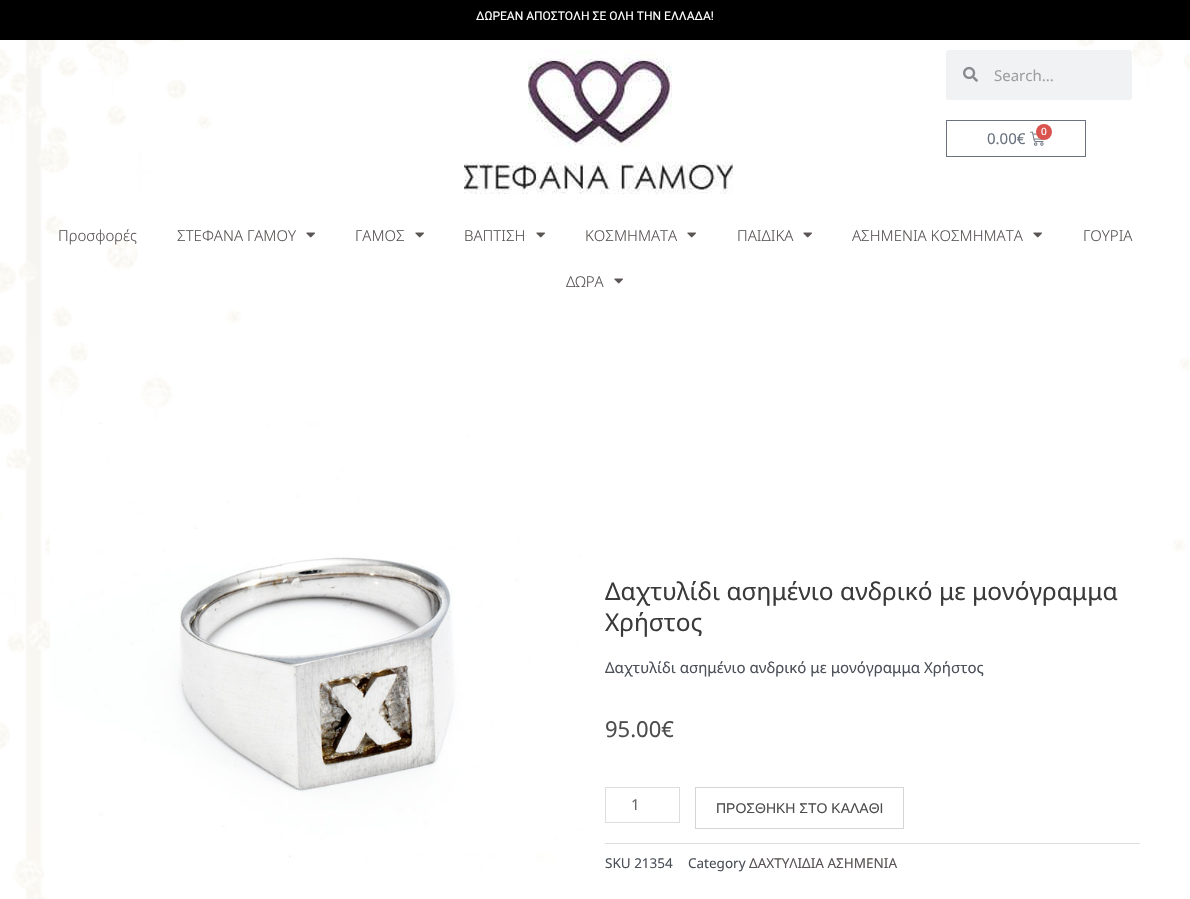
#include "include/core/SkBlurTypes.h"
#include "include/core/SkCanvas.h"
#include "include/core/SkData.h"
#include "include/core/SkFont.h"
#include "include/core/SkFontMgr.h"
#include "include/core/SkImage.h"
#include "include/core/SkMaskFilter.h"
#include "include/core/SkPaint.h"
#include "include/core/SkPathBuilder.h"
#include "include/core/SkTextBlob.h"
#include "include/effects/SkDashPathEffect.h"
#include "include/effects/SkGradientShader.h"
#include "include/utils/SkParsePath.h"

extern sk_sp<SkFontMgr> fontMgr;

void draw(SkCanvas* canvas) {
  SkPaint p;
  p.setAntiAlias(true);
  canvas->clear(SK_ColorWHITE);
  canvas->drawImageRect(SkImages::DeferredFromEncodedData(SkData::MakeFromFileName("images/1.png")), SkRect::MakeLTRB(0, 40, 1190, 899), SkSamplingOptions());
  p.setColor(SK_ColorBLACK);
  canvas->drawRect(SkRect::MakeLTRB(0, 0, 1190, 40), p);
  canvas->drawImageRect(SkImages::DeferredFromEncodedData(SkData::MakeFromFileName("images/2.png")), SkRect::MakeLTRB(464, 50, 733, 194), SkSamplingOptions());
  p.setColor(SkColorSetRGB(241, 242, 243));
  canvas->drawRoundRect(SkRect::MakeLTRB(946, 50, 1132, 100), 3, 3, p);
  canvas->drawImageRect(SkImages::DeferredFromEncodedData(SkData::MakeFromFileName("images/3.png")), SkRect::MakeLTRB(963, 66, 978, 82), SkSamplingOptions());
  p.setStyle(SkPaint::kStroke_Style);
  p.setStrokeWidth(1);
  p.setColor(SkColorSetRGB(105, 114, 125));
  canvas->drawRect(SkRect::MakeLTRB(946.5f, 120.5f, 1085.5f, 156.5f), p);
  canvas->drawImageRect(SkImages::DeferredFromEncodedData(SkData::MakeFromFileName("images/4.png")), SkRect::MakeLTRB(1030, 131, 1044, 146), SkSamplingOptions());
  p.setStyle(SkPaint::kFill_Style);
  p.setColor(SkColorSetRGB(217, 83, 79));
  canvas->drawCircle(1044, 132, 8, p);
  canvas->drawImageRect(SkImages::DeferredFromEncodedData(SkData::MakeFromFileName("images/5.png")), SkRect::MakeLTRB(306, 232, 315, 238), SkSamplingOptions());
  canvas->drawImageRect(SkImages::DeferredFromEncodedData(SkData::MakeFromFileName("images/5.png")), SkRect::MakeLTRB(415, 232, 424, 238), SkSamplingOptions());
  canvas->drawImageRect(SkImages::DeferredFromEncodedData(SkData::MakeFromFileName("images/5.png")), SkRect::MakeLTRB(536, 232, 545, 238), SkSamplingOptions());
  canvas->drawImageRect(SkImages::DeferredFromEncodedData(SkData::MakeFromFileName("images/5.png")), SkRect::MakeLTRB(687, 232, 696, 238), SkSamplingOptions());
  canvas->drawImageRect(SkImages::DeferredFromEncodedData(SkData::MakeFromFileName("images/5.png")), SkRect::MakeLTRB(803, 232, 812, 238), SkSamplingOptions());
  canvas->drawImageRect(SkImages::DeferredFromEncodedData(SkData::MakeFromFileName("images/5.png")), SkRect::MakeLTRB(1033, 232, 1042, 238), SkSamplingOptions());
  canvas->drawImageRect(SkImages::DeferredFromEncodedData(SkData::MakeFromFileName("images/5.png")), SkRect::MakeLTRB(614, 278, 623, 284), SkSamplingOptions());
  canvas->drawImageRect(SkImages::DeferredFromEncodedData(SkData::MakeFromFileName("images/6.png")), SkRect::MakeLTRB(50, 422, 582, 880), SkSamplingOptions());
  p.setStyle(SkPaint::kStroke_Style);
  p.setColor(SkColorSetRGB(221, 221, 221));
  canvas->drawRect(SkRect::MakeLTRB(605.5f, 787.5f, 679.5f, 822.5f), p);
  p.setColor(SkColorSetRGB(213, 213, 213));
  canvas->drawRect(SkRect::MakeLTRB(695.5f, 787.5f, 903.5f, 828.5f), p);
  p.setStyle(SkPaint::kFill_Style);
  p.setColor(SkColorSetRGB(221, 221, 221));
  canvas->drawRect(SkRect::MakeLTRB(605, 843, 1140, 844), p);
  SkFont font1(fontMgr->matchFamilyStyle("Roboto", SkFontStyle::Normal()), 12);
  font1.setSubpixel(true);
  p.setColor(SK_ColorWHITE);
  canvas->drawString("ΔΩΡΕΑΝ ΑΠΟΣΤΟΛΗ ΣΕ ΟΛΗ ΤΗΝ ΕΛΛΑΔΑ!", 476, 20, font1, p);
  SkFont font2(fontMgr->matchFamilyStyle("Noto Sans", SkFontStyle::Normal()), 15);
  font2.setSubpixel(true);
  p.setColor(SkColorSetRGB(158, 158, 158));
  canvas->drawString("Search...", 994, 81, font2, p);
  SkFont font3(fontMgr->matchFamilyStyle("Noto Sans", SkFontStyle::Normal()), 10);
  font3.setSubpixel(true);
  p.setColor(SK_ColorWHITE);
  canvas->drawString("0", 1041, 135, font3, p);
  p.setColor(SkColorSetRGB(105, 114, 125));
  canvas->drawString("0.00€", 987, 144, font2, p);
  SkFont font4(fontMgr->matchFamilyStyle("Noto Sans", SkFontStyle(300, SkFontStyle::kNormal_Width, SkFontStyle::kUpright_Slant)), 15);
  font4.setSubpixel(true);
  p.setColor(SkColorSetRGB(90, 84, 84));
  canvas->drawString("Προσφορές", 58, 241, font4, p);
  canvas->drawString("ΣΤΕΦΑΝΑ ΓΑΜΟΥ", 177, 241, font4, p);
  canvas->drawString("ΓΑΜΟΣ", 355, 241, font4, p);
  canvas->drawString("ΒΑΠΤΙΣΗ", 464, 241, font4, p);
  canvas->drawString("ΚΟΣΜΗΜΑΤΑ", 585, 241, font4, p);
  canvas->drawString("ΠΑΙΔΙΚΑ", 737, 241, font4, p);
  canvas->drawString("ΑΣΗΜΕΝΙΑ ΚΟΣΜΗΜΑΤΑ", 852, 241, font4, p);
  canvas->drawString("ΓΟΥΡΙΑ", 1083, 241, font4, p);
  canvas->drawString("ΔΩΡΑ", 566, 287, font4, p);
  SkFont font5(fontMgr->matchFamilyStyle("Noto Sans", SkFontStyle::Normal()), 24.4f);
  font5.setSubpixel(true);
  p.setColor(SkColorSetRGB(58, 58, 58));
  canvas->drawString("Δαχτυλίδι ασημένιο ανδρικό με μονόγραμμα", 605, 600, font5, p);
  canvas->drawString("Χρήστος", 605, 631, font5, p);
  p.setColor(SkColorSetRGB(75, 79, 88));
  canvas->drawString("Δαχτυλίδι ασημένιο ανδρικό με μονόγραμμα Χρήστος", 605, 673, font2, p);
  SkFont font6(fontMgr->matchFamilyStyle("Noto Sans", SkFontStyle::Normal()), 22);
  font6.setSubpixel(true);
  p.setColor(SkColorSetRGB(77, 77, 77));
  canvas->drawString("95.00€", 605, 737, font6, p);
  p.setColor(SkColorSetRGB(102, 102, 102));
  canvas->drawString("1", 631, 810, font2, p);
  SkFont font7(fontMgr->matchFamilyStyle("Liberation Sans", SkFontStyle::Normal()), 14);
  font7.setSubpixel(true);
  p.setColor(SkColorSetRGB(77, 77, 77));
  canvas->drawString("ΠΡΟΣΘΗΚΗ ΣΤΟ ΚΑΛΑΘΙ", 716, 813, font7, p);
  SkFont font8(fontMgr->matchFamilyStyle("Noto Sans", SkFontStyle::Normal()), 13.5f);
  font8.setSubpixel(true);
  p.setColor(SkColorSetRGB(75, 79, 88));
  canvas->drawString("SKU 21354", 605, 868, font8, p);
  canvas->drawString("Category", 688, 868, font8, p);
  p.setColor(SkColorSetRGB(90, 84, 84));
  canvas->drawString("ΔΑΧΤΥΛΙΔΙΑ ΑΣΗΜΕΝΙΑ", 749, 868, font8, p);
}
